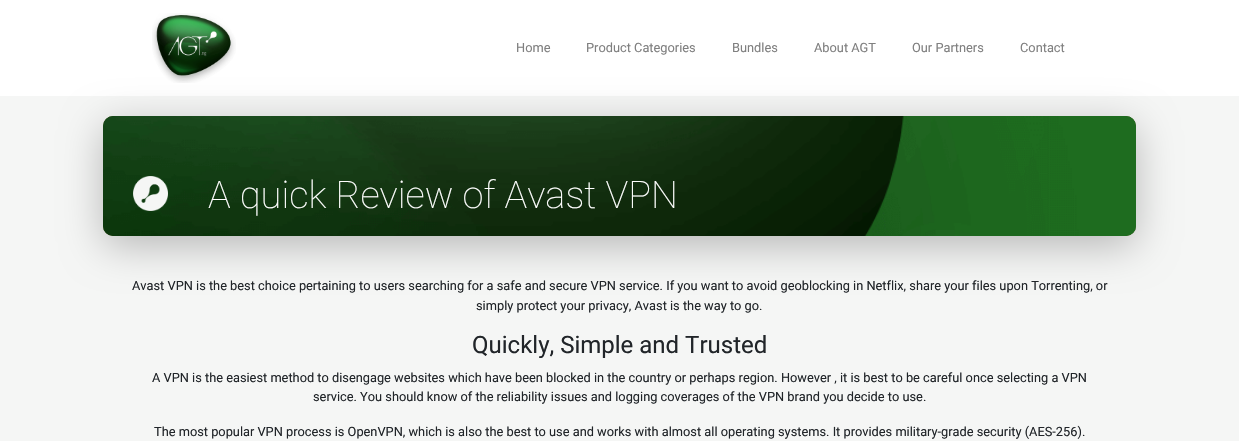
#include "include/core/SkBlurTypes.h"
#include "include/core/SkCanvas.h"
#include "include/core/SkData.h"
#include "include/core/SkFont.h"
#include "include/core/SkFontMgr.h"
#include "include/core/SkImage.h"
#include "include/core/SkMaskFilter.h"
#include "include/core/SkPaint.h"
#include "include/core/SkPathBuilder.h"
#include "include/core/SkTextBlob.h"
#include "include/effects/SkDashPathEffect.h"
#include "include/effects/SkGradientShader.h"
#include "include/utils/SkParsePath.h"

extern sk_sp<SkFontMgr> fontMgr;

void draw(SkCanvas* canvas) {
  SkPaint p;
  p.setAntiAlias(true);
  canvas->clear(SkColorSetRGB(245, 246, 245));
  p.setColor(SK_ColorWHITE);
  canvas->drawRect(SkRect::MakeLTRB(0, 0, 1239, 96), p);
  canvas->drawImageRect(SkImages::DeferredFromEncodedData(SkData::MakeFromFileName("images/1.png")), SkRect::MakeLTRB(152, 13, 236, 83), SkSamplingOptions());
  p.setColor(SkColorSetRGB(183, 183, 183));
  p.setMaskFilter(SkMaskFilter::MakeBlur(kNormal_SkBlurStyle, 20));
  canvas->drawRoundRect(SkRect::MakeLTRB(103, 126, 1136, 246), 10, 10, p);
  p.setMaskFilter(nullptr);
  p.setColor(SkColorSetRGB(67, 82, 21));
  canvas->drawRoundRect(SkRect::MakeLTRB(103, 116, 1136, 236), 10, 10, p);
  canvas->drawImageRect(SkImages::DeferredFromEncodedData(SkData::MakeFromFileName("images/2.png")), SkRect::MakeLTRB(103, 116, 1136, 236), SkSamplingOptions());
  canvas->drawImageRect(SkImages::DeferredFromEncodedData(SkData::MakeFromFileName("images/3.png")), SkRect::MakeLTRB(133, 176, 168, 211), SkSamplingOptions());
  SkFont font1(fontMgr->matchFamilyStyle("Roboto", SkFontStyle::Normal()), 12.8f);
  font1.setSubpixel(true);
  p.setColor(SkColorSetRGB(128, 128, 128));
  canvas->drawString("Home", 516, 52, font1, p);
  canvas->drawString("Product Categories", 586, 52, font1, p);
  canvas->drawString("Bundles", 732, 52, font1, p);
  canvas->drawString("About AGT", 814, 52, font1, p);
  canvas->drawString("Our Partners", 912, 52, font1, p);
  canvas->drawString("Contact", 1020, 52, font1, p);
  SkFont font2(fontMgr->matchFamilyStyle("Roboto", SkFontStyle(100, SkFontStyle::kNormal_Width, SkFontStyle::kUpright_Slant)), 38);
  font2.setSubpixel(true);
  p.setColor(SK_ColorWHITE);
  canvas->drawString("A quick Review of Avast VPN", 208, 208, font2, p);
  p.setColor(SkColorSetRGB(33, 37, 41));
  canvas->drawString("Avast VPN is the best choice pertaining to users searching for a safe and secure VPN service. If you want to avoid geoblocking in Netflix, share your files upon Torrenting, or", 132, 290, font1, p);
  canvas->drawString("simply protect your privacy, Avast is the way to go.", 476, 310, font1, p);
  SkFont font3(fontMgr->matchFamilyStyle("Roboto", SkFontStyle::Normal()), 24);
  font3.setSubpixel(true);
  canvas->drawString("Quickly, Simple and Trusted", 472, 353, font3, p);
  canvas->drawString("A VPN is the easiest method to disengage websites which have been blocked in the country or perhaps region. However , it is best to be careful once selecting a VPN", 152, 382, font1, p);
  canvas->drawString("service. You should know of the reliability issues and logging coverages of the VPN brand you decide to use.", 313, 401, font1, p);
  canvas->drawString("The most popular VPN process is OpenVPN, which is also the best to use and works with almost all operating systems. It provides military-grade security (AES-256).", 154, 436, font1, p);
}
